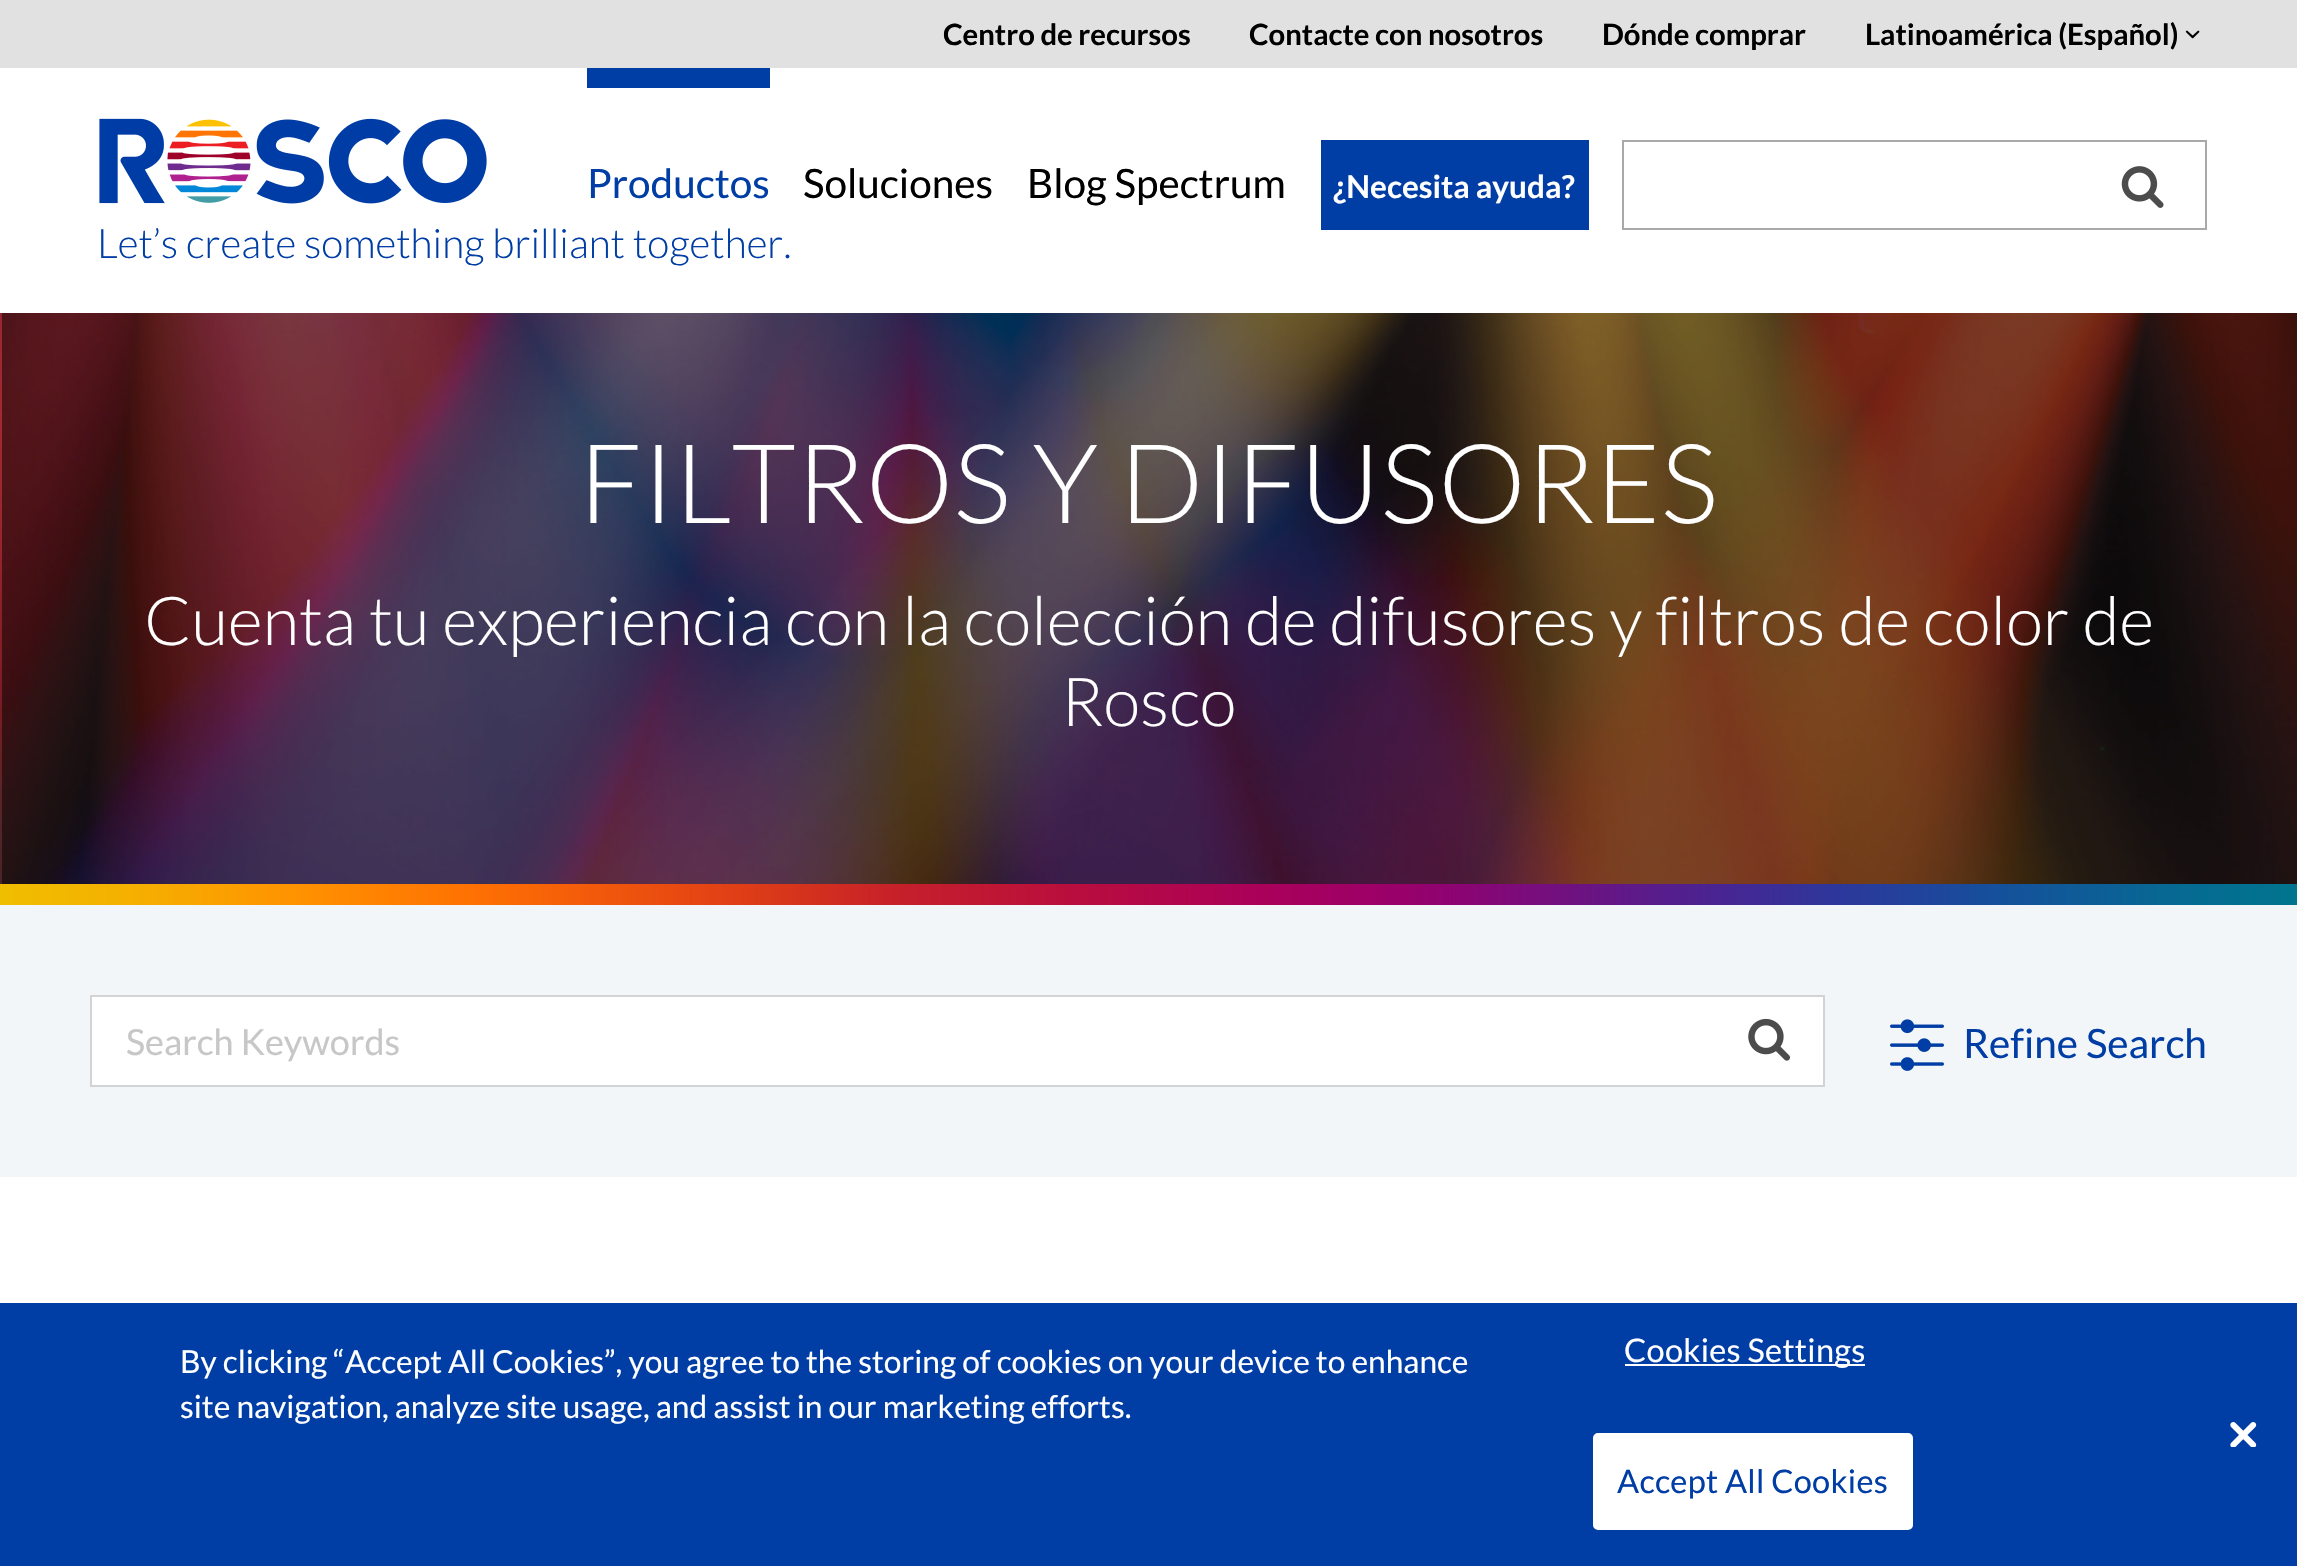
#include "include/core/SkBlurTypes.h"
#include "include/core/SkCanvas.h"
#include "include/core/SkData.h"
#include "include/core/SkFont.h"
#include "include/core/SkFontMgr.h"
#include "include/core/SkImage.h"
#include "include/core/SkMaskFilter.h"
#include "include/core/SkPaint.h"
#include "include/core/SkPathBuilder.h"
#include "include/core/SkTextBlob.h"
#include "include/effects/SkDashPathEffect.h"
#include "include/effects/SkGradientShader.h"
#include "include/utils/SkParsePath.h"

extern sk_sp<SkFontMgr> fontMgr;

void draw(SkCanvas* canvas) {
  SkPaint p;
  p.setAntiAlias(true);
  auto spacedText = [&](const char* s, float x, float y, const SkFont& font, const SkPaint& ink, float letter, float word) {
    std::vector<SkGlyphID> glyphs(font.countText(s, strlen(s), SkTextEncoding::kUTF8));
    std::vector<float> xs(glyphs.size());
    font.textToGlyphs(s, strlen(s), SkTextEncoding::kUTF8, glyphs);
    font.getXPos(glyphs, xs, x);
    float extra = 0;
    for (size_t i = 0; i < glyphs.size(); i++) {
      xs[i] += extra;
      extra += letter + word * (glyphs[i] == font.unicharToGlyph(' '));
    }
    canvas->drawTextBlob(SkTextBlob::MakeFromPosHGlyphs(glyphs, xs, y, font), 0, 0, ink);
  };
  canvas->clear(SK_ColorWHITE);
  p.setColor(SkColorSetRGB(225, 225, 225));
  canvas->drawRect(SkRect::MakeLTRB(0, 0, 2297, 68), p);
  canvas->drawImageRect(SkImages::DeferredFromEncodedData(SkData::MakeFromFileName("images/1.png")), SkRect::MakeLTRB(2185, 30, 2200, 39), SkSamplingOptions());
  p.setColor(SkColorSetRGB(0, 61, 165));
  canvas->drawRect(SkRect::MakeLTRB(587, 68, 770, 88), p);
  canvas->drawRect(SkRect::MakeLTRB(1321, 140, 1589, 230), p);
  p.setStyle(SkPaint::kStroke_Style);
  p.setStrokeWidth(2);
  p.setColor(SkColorSetRGB(169, 169, 169));
  canvas->drawRect(SkRect::MakeLTRB(1623, 141, 2206, 229), p);
  canvas->drawImageRect(SkImages::DeferredFromEncodedData(SkData::MakeFromFileName("images/2.png")), SkRect::MakeLTRB(2121, 166, 2164, 208), SkSamplingOptions());
  canvas->drawImageRect(SkImages::DeferredFromEncodedData(SkData::MakeFromFileName("images/3.png")), SkRect::MakeLTRB(99, 118, 487, 204), SkSamplingOptions());
  canvas->drawImageRect(SkImages::DeferredFromEncodedData(SkData::MakeFromFileName("images/4.png")), SkRect::MakeLTRB(0, 313, 2297, 884), SkSamplingOptions());
  p.setStyle(SkPaint::kFill_Style);
  {
    const SkColor colors[] = {SkColorSetRGB(240, 190, 0), SkColorSetRGB(245, 175, 0), SkColorSetRGB(255, 146, 0), SkColorSetRGB(254, 111, 3), SkColorSetRGB(234, 76, 16), SkColorSetRGB(213, 50, 29), SkColorSetRGB(198, 32, 42), SkColorSetRGB(184, 13, 62), SkColorSetRGB(170, 0, 90), SkColorSetRGB(153, 0, 106), SkColorSetRGB(137, 5, 116), SkColorSetRGB(77, 34, 144), SkColorSetRGB(45, 55, 155), SkColorSetRGB(21, 80, 155), SkColorSetRGB(6, 106, 146), SkColorSetRGB(0, 117, 142)};
    const float stops[] = {0, 0.06f, 0.13f, 0.21f, 0.29f, 0.35f, 0.39f, 0.47f, 0.55f, 0.61f, 0.64f, 0.74f, 0.8f, 0.87f, 0.95f, 1};
    const SkPoint ends[] = {{0, 894}, {2297, 894}};
    p.setShader(SkGradientShader::MakeLinear(ends, colors, stops, 16, SkTileMode::kClamp));
    p.setAlpha(255);
  }
  canvas->drawRect(SkRect::MakeLTRB(0, 884, 2297, 905), p);
  p.setShader(nullptr);
  p.setColor(SkColorSetRGB(242, 246, 249));
  canvas->drawRect(SkRect::MakeLTRB(0, 905, 2297, 1177), p);
  p.setColor(SK_ColorWHITE);
  canvas->drawRect(SkRect::MakeLTRB(91, 996, 1824, 1086), p);
  p.setStyle(SkPaint::kStroke_Style);
  p.setColor(SkColorSetRGB(209, 211, 212));
  canvas->drawRect(SkRect::MakeLTRB(91, 996, 1824, 1086), p);
  canvas->drawImageRect(SkImages::DeferredFromEncodedData(SkData::MakeFromFileName("images/5.png")), SkRect::MakeLTRB(1748, 1018, 1790, 1061), SkSamplingOptions());
  canvas->drawImageRect(SkImages::DeferredFromEncodedData(SkData::MakeFromFileName("images/6.png")), SkRect::MakeLTRB(1890, 1019, 1944, 1071), SkSamplingOptions());
  p.setStyle(SkPaint::kFill_Style);
  p.setColor(SkColorSetRGB(0, 61, 165));
  canvas->drawRect(SkRect::MakeLTRB(0, 1303, 2297, 1566), p);
  p.setColor(SK_ColorWHITE);
  canvas->drawRect(SkRect::MakeLTRB(1625, 1364, 1865, 1366), p);
  canvas->drawRoundRect(SkRect::MakeLTRB(1594, 1434, 1912, 1529), 4, 4, p);
  p.setStyle(SkPaint::kStroke_Style);
  canvas->drawRoundRect(SkRect::MakeLTRB(1594, 1434, 1912, 1529), 4, 4, p);
  canvas->drawImageRect(SkImages::DeferredFromEncodedData(SkData::MakeFromFileName("images/7.png")), SkRect::MakeLTRB(2230, 1422, 2257, 1447), SkSamplingOptions());
  SkFont font1(fontMgr->matchFamilyStyle("Lato", SkFontStyle::Bold()), 29.25f);
  font1.setSubpixel(true);
  p.setStyle(SkPaint::kFill_Style);
  p.setColor(SK_ColorBLACK);
  canvas->drawString("Centro de recursos", 943, 45, font1, p);
  canvas->drawString("Contacte con nosotros", 1249, 45, font1, p);
  canvas->drawString("Dónde comprar", 1602, 45, font1, p);
  canvas->drawString("Latinoamérica (Español)", 1865, 45, font1, p);
  SkFont font2(fontMgr->matchFamilyStyle("Lato", SkFontStyle::Normal()), 40.5f);
  font2.setSubpixel(true);
  p.setColor(SkColorSetRGB(0, 61, 165));
  canvas->drawString("Productos", 587, 198, font2, p);
  p.setColor(SK_ColorBLACK);
  canvas->drawString("Soluciones", 803, 198, font2, p);
  canvas->drawString("Blog Spectrum", 1027, 198, font2, p);
  SkFont font3(fontMgr->matchFamilyStyle("Lato", SkFontStyle::Bold()), 31.5f);
  font3.setSubpixel(true);
  p.setColor(SK_ColorWHITE);
  canvas->drawString("¿Necesita ayuda?", 1333, 198, font3, p);
  SkFont font4(fontMgr->matchFamilyStyle("Lato", SkFontStyle(300, SkFontStyle::kNormal_Width, SkFontStyle::kUpright_Slant)), 40.5f);
  font4.setSubpixel(true);
  p.setColor(SkColorSetRGB(0, 61, 165));
  canvas->drawString("Let’s create something brilliant together.", 97, 258, font4, p);
  SkFont font5(fontMgr->matchFamilyStyle("Lato", SkFontStyle(300, SkFontStyle::kNormal_Width, SkFontStyle::kUpright_Slant)), 110.25f);
  font5.setSubpixel(true);
  p.setColor(SK_ColorWHITE);
  canvas->drawString("FILTROS Y DIFUSORES", 579, 523, font5, p);
  SkFont font6(fontMgr->matchFamilyStyle("Lato", SkFontStyle(300, SkFontStyle::kNormal_Width, SkFontStyle::kUpright_Slant)), 67.5f);
  font6.setSubpixel(true);
  canvas->drawString("Cuenta tu experiencia con la colección de difusores y filtros de color de", 144, 645, font6, p);
  canvas->drawString("Rosco", 1061, 726, font6, p);
  SkFont font7(fontMgr->matchFamilyStyle("Lato", SkFontStyle::Normal()), 36);
  font7.setSubpixel(true);
  p.setColor(SkColorSetRGB(199, 199, 199));
  canvas->drawString("Search Keywords", 126, 1055, font7, p);
  p.setColor(SkColorSetRGB(0, 61, 165));
  canvas->drawString("Refine Search", 1963, 1058, font2, p);
  SkFont font8(fontMgr->matchFamilyStyle("Lato", SkFontStyle::Normal()), 31.7f);
  font8.setSubpixel(true);
  p.setColor(SK_ColorWHITE);
  canvas->drawString("By clicking “Accept All Cookies”, you agree to the storing of cookies on your device to enhance", 180, 1373, font8, p);
  canvas->drawString("site navigation, analyze site usage, and assist in our marketing efforts.", 180, 1418, font8, p);
  SkFont font9(fontMgr->matchFamilyStyle("Lato", SkFontStyle::Normal()), 32.5f);
  font9.setSubpixel(true);
  spacedText("Cookies Settings", 1624, 1362, font9, p, 0.3f, 0);
  p.setColor(SkColorSetRGB(0, 61, 165));
  spacedText("Accept All Cookies", 1617, 1493, font9, p, 0.3f, 0);
}
